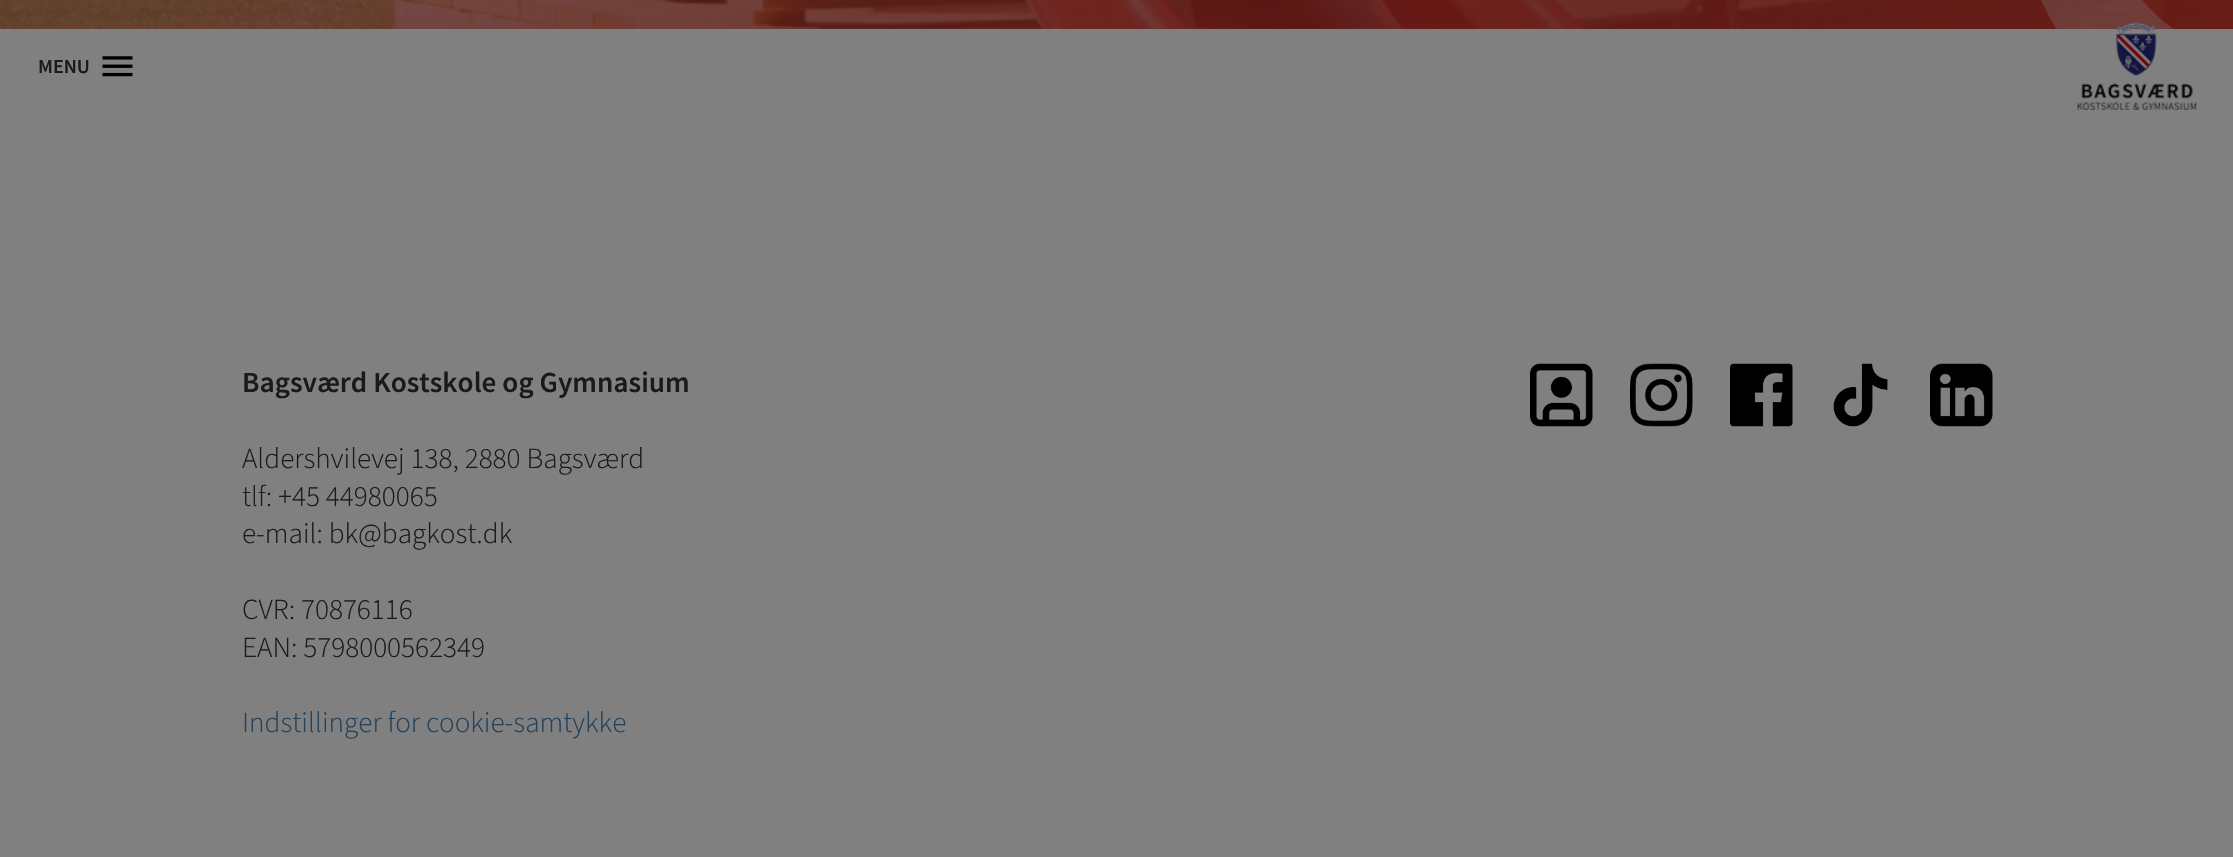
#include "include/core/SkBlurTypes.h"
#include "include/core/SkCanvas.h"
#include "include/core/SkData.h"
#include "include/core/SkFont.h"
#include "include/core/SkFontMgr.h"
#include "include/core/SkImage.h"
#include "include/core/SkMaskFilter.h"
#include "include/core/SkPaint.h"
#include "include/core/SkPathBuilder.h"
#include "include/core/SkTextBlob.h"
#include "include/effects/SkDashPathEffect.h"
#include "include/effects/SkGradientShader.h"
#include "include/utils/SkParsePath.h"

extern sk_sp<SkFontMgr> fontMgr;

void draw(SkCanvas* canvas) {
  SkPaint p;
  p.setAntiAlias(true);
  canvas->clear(SkColorSetRGB(128, 128, 128));
  canvas->drawImageRect(SkImages::DeferredFromEncodedData(SkData::MakeFromFileName("images/1.png")), SkRect::MakeLTRB(0, 0, 2233, 29), SkSamplingOptions());
  {
    const SkColor colors[] = {SkColorSetRGB(104, 28, 23), SkColorSetARGB(0, 104, 28, 23)};
    const float stops[] = {0, 1};
    const SkPoint ends[] = {{1250, 276}, {984, -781}};
    p.setShader(SkGradientShader::MakeLinear(ends, colors, stops, 2, SkTileMode::kClamp));
    p.setAlpha(255);
  }
  canvas->drawRect(SkRect::MakeLTRB(0, 0, 2233, 29), p);
  canvas->drawImageRect(SkImages::DeferredFromEncodedData(SkData::MakeFromFileName("images/2.png")), SkRect::MakeLTRB(2041, 0, 2173, 29), SkSamplingOptions());
  canvas->drawImageRect(SkImages::DeferredFromEncodedData(SkData::MakeFromFileName("images/3.png")), SkRect::MakeLTRB(102, 56, 133, 77), SkSamplingOptions());
  canvas->drawImageRect(SkImages::DeferredFromEncodedData(SkData::MakeFromFileName("images/4.png")), SkRect::MakeLTRB(2077, 22, 2197, 110), SkSamplingOptions());
  canvas->drawImageRect(SkImages::DeferredFromEncodedData(SkData::MakeFromFileName("images/5.png")), SkRect::MakeLTRB(1530, 363, 1593, 427), SkSamplingOptions());
  canvas->drawImageRect(SkImages::DeferredFromEncodedData(SkData::MakeFromFileName("images/6.png")), SkRect::MakeLTRB(1630, 363, 1693, 427), SkSamplingOptions());
  canvas->drawImageRect(SkImages::DeferredFromEncodedData(SkData::MakeFromFileName("images/7.png")), SkRect::MakeLTRB(1730, 363, 1793, 427), SkSamplingOptions());
  canvas->drawImageRect(SkImages::DeferredFromEncodedData(SkData::MakeFromFileName("images/8.png")), SkRect::MakeLTRB(1833, 363, 1888, 427), SkSamplingOptions());
  canvas->drawImageRect(SkImages::DeferredFromEncodedData(SkData::MakeFromFileName("images/9.png")), SkRect::MakeLTRB(1930, 363, 1993, 427), SkSamplingOptions());
  SkFont font1(fontMgr->matchFamilyStyle("Source Sans Pro", SkFontStyle(600, SkFontStyle::kNormal_Width, SkFontStyle::kUpright_Slant)), 20);
  font1.setSubpixel(true);
  p.setShader(nullptr);
  p.setColor(SkColorSetRGB(26, 26, 26));
  canvas->drawString("MENU", 38, 73, font1, p);
  SkFont font2(fontMgr->matchFamilyStyle("Source Sans Pro", SkFontStyle(600, SkFontStyle::kNormal_Width, SkFontStyle::kUpright_Slant)), 29.2f);
  font2.setSubpixel(true);
  canvas->drawString("Bagsværd Kostskole og Gymnasium", 242, 392, font2, p);
  SkFont font3(fontMgr->matchFamilyStyle("Source Sans 3", SkFontStyle(300, SkFontStyle::kNormal_Width, SkFontStyle::kUpright_Slant)), 29.2f);
  font3.setSubpixel(true);
  canvas->drawString("Aldershvilevej 138, 2880 Bagsværd", 242, 468, font3, p);
  canvas->drawString("tlf: +45 44980065", 242, 506, font3, p);
  canvas->drawString("e-mail: bk@bagkost.dk", 242, 543, font3, p);
  canvas->drawString("CVR: 70876116", 242, 619, font3, p);
  canvas->drawString("EAN: 5798000562349", 242, 657, font3, p);
  p.setColor(SkColorSetRGB(35, 65, 90));
  canvas->drawString("Indstillinger for cookie-samtykke", 242, 732, font3, p);
}
